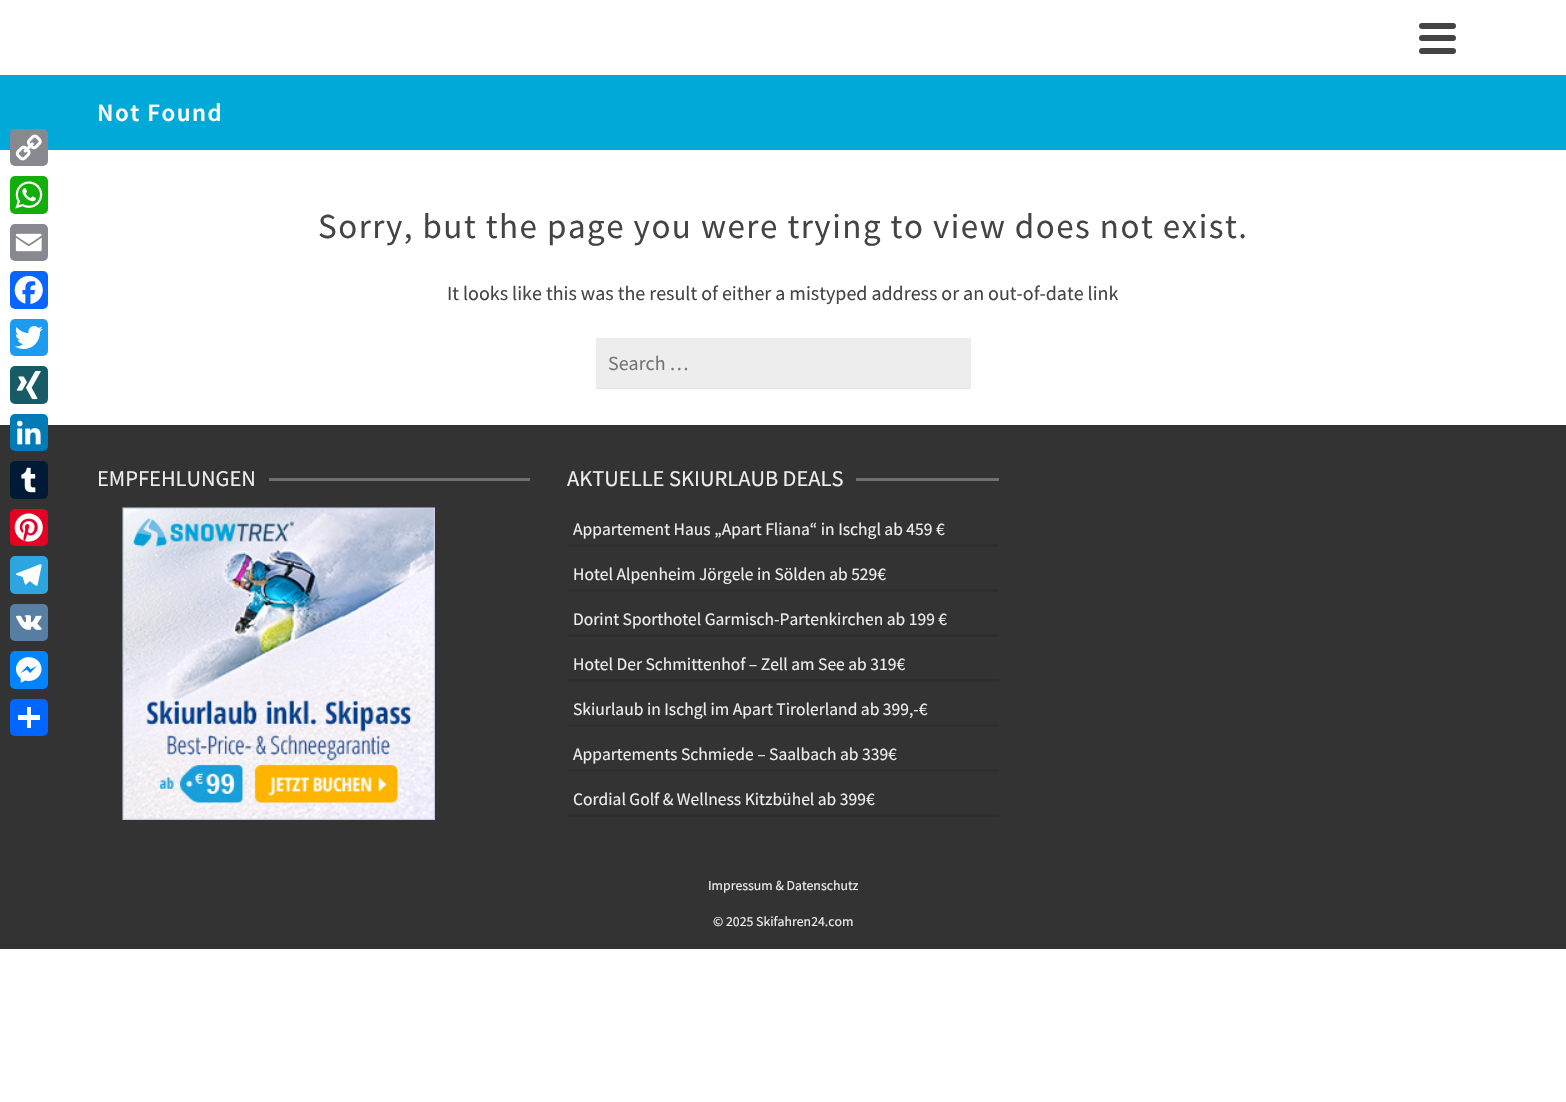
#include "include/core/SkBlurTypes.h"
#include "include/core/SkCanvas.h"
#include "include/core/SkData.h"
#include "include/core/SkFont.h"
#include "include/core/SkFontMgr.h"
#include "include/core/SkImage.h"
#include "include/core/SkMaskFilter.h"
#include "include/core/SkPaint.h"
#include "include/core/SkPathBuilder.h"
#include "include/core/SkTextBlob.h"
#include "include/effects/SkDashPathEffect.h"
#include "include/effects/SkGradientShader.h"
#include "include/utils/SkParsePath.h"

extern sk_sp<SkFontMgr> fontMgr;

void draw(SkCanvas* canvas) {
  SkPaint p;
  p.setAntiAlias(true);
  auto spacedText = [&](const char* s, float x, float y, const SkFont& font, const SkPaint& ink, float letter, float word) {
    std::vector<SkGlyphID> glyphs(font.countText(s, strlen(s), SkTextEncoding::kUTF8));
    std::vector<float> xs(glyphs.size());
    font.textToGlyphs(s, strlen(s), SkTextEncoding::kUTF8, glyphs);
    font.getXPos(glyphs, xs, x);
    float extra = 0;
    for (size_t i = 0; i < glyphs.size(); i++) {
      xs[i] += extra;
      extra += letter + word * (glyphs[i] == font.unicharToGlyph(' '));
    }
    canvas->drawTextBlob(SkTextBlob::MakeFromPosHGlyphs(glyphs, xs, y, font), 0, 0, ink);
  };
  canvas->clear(SK_ColorWHITE);
  p.setColor(SkColorSetRGB(1, 169, 217));
  canvas->drawRect(SkRect::MakeLTRB(0, 75, 1566, 150), p);
  p.setColor(SkColorSetRGB(136, 137, 144));
  canvas->drawRoundRect(SkRect::MakeLTRB(10, 129, 48, 166), 5, 5, p);
  canvas->drawImageRect(SkImages::DeferredFromEncodedData(SkData::MakeFromFileName("images/1.png")), SkRect::MakeLTRB(15, 134, 42, 161), SkSamplingOptions());
  p.setColor(SkColorSetRGB(18, 175, 10));
  canvas->drawRoundRect(SkRect::MakeLTRB(10, 176, 48, 214), 5, 5, p);
  canvas->drawImageRect(SkImages::DeferredFromEncodedData(SkData::MakeFromFileName("images/2.png")), SkRect::MakeLTRB(15, 181, 43, 209), SkSamplingOptions());
  p.setColor(SkColorSetRGB(136, 137, 144));
  canvas->drawRoundRect(SkRect::MakeLTRB(10, 224, 48, 261), 5, 5, p);
  canvas->drawImageRect(SkImages::DeferredFromEncodedData(SkData::MakeFromFileName("images/3.png")), SkRect::MakeLTRB(15, 233, 42, 252), SkSamplingOptions());
  p.setColor(SkColorSetRGB(8, 102, 255));
  canvas->drawRoundRect(SkRect::MakeLTRB(10, 271, 48, 309), 5, 5, p);
  canvas->drawImageRect(SkImages::DeferredFromEncodedData(SkData::MakeFromFileName("images/4.png")), SkRect::MakeLTRB(14, 275, 43, 304), SkSamplingOptions());
  p.setColor(SkColorSetRGB(29, 155, 240));
  canvas->drawRoundRect(SkRect::MakeLTRB(10, 319, 48, 356), 5, 5, p);
  canvas->drawImageRect(SkImages::DeferredFromEncodedData(SkData::MakeFromFileName("images/5.png")), SkRect::MakeLTRB(14, 326, 43, 349), SkSamplingOptions());
  p.setColor(SkColorSetRGB(22, 91, 102));
  canvas->drawRoundRect(SkRect::MakeLTRB(10, 366, 48, 404), 5, 5, p);
  canvas->drawImageRect(SkImages::DeferredFromEncodedData(SkData::MakeFromFileName("images/6.png")), SkRect::MakeLTRB(16, 370, 41, 400), SkSamplingOptions());
  p.setColor(SkColorSetRGB(51, 51, 51));
  canvas->drawRect(SkRect::MakeLTRB(0, 425, 1566, 949), p);
  p.setColor(SkColorSetRGB(0, 123, 181));
  canvas->drawRoundRect(SkRect::MakeLTRB(10, 414, 48, 451), 5, 5, p);
  canvas->drawImageRect(SkImages::DeferredFromEncodedData(SkData::MakeFromFileName("images/7.png")), SkRect::MakeLTRB(16, 420, 41, 445), SkSamplingOptions());
  p.setColor(SkColorSetRGB(0, 25, 53));
  canvas->drawRoundRect(SkRect::MakeLTRB(10, 461, 48, 499), 5, 5, p);
  canvas->drawImageRect(SkImages::DeferredFromEncodedData(SkData::MakeFromFileName("images/8.png")), SkRect::MakeLTRB(21, 467, 36, 493), SkSamplingOptions());
  p.setColor(SkColorSetRGB(230, 0, 35));
  canvas->drawRoundRect(SkRect::MakeLTRB(10, 509, 48, 546), 5, 5, p);
  canvas->drawImageRect(SkImages::DeferredFromEncodedData(SkData::MakeFromFileName("images/9.png")), SkRect::MakeLTRB(14, 513, 43, 542), SkSamplingOptions());
  p.setColor(SkColorSetRGB(44, 165, 224));
  canvas->drawRoundRect(SkRect::MakeLTRB(10, 556, 48, 594), 5, 5, p);
  canvas->drawImageRect(SkImages::DeferredFromEncodedData(SkData::MakeFromFileName("images/10.png")), SkRect::MakeLTRB(15, 564, 42, 586), SkSamplingOptions());
  p.setColor(SkColorSetRGB(88, 126, 163));
  canvas->drawRoundRect(SkRect::MakeLTRB(10, 604, 48, 641), 5, 5, p);
  canvas->drawImageRect(SkImages::DeferredFromEncodedData(SkData::MakeFromFileName("images/11.png")), SkRect::MakeLTRB(15, 615, 42, 630), SkSamplingOptions());
  p.setColor(SkColorSetRGB(0, 132, 255));
  canvas->drawRoundRect(SkRect::MakeLTRB(10, 651, 48, 689), 5, 5, p);
  canvas->drawImageRect(SkImages::DeferredFromEncodedData(SkData::MakeFromFileName("images/12.png")), SkRect::MakeLTRB(16, 657, 42, 683), SkSamplingOptions());
  p.setColor(SkColorSetRGB(1, 102, 255));
  canvas->drawRoundRect(SkRect::MakeLTRB(10, 699, 48, 736), 5, 5, p);
  p.setColor(SK_ColorWHITE);
  canvas->drawRect(SkRect::MakeLTRB(27, 707, 31, 728), p);
  canvas->drawRect(SkRect::MakeLTRB(18, 715, 40, 720), p);
  p.setColor(SkColorSetRGB(68, 68, 68));
  canvas->drawRoundRect(SkRect::MakeLTRB(1419, 23, 1456, 29), 3, 3, p);
  canvas->drawRoundRect(SkRect::MakeLTRB(1419, 35, 1456, 41), 3, 3, p);
  canvas->drawRoundRect(SkRect::MakeLTRB(1419, 48, 1456, 54), 3, 3, p);
  p.setColor(SkColorSetRGB(230, 230, 230));
  canvas->drawPath(SkPathBuilder().moveTo(596, 339).lineTo(596, 389).lineTo(971, 389).lineTo(971, 388).lineTo(596, 388).close().detach(), p);
  p.setColor(SkColorSetRGB(237, 237, 237));
  canvas->drawRect(SkRect::MakeLTRB(596, 338, 971, 388), p);
  p.setColor(SkColorSetRGB(112, 112, 112));
  canvas->drawRect(SkRect::MakeLTRB(269, 478, 530, 481), p);
  canvas->drawImageRect(SkImages::DeferredFromEncodedData(SkData::MakeFromFileName("images/13.png")), SkRect::MakeLTRB(122, 507, 435, 820), SkSamplingOptions());
  canvas->drawRect(SkRect::MakeLTRB(856, 478, 999, 481), p);
  p.setColor(SkColorSetRGB(46, 46, 46));
  canvas->drawRect(SkRect::MakeLTRB(568, 544, 999, 547), p);
  canvas->drawRect(SkRect::MakeLTRB(568, 589, 999, 592), p);
  canvas->drawRect(SkRect::MakeLTRB(568, 634, 999, 637), p);
  canvas->drawRect(SkRect::MakeLTRB(568, 679, 999, 682), p);
  canvas->drawRect(SkRect::MakeLTRB(568, 724, 999, 727), p);
  canvas->drawRect(SkRect::MakeLTRB(568, 769, 999, 772), p);
  canvas->drawRect(SkRect::MakeLTRB(568, 814, 999, 817), p);
  SkFont font1(fontMgr->matchFamilyStyle("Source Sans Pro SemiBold", SkFontStyle(600, SkFontStyle::kNormal_Width, SkFontStyle::kUpright_Slant)), 25);
  font1.setSubpixel(true);
  p.setColor(SK_ColorWHITE);
  spacedText("Not Found", 97, 121, font1, p, 1.5f, 0);
  SkFont font2(fontMgr->matchFamilyStyle("Source Sans Pro", SkFontStyle::Normal()), 35);
  font2.setSubpixel(true);
  p.setColor(SkColorSetRGB(68, 68, 68));
  spacedText("Sorry, but the page you were trying to view does not exist.", 318, 238, font2, p, 1.5f, 0);
  SkFont font3(fontMgr->matchFamilyStyle("Source Sans Pro", SkFontStyle::Normal()), 20);
  font3.setSubpixel(true);
  canvas->drawString("It looks like this was the result of either a mistyped address or an out-of-date link", 447, 300, font3, p);
  p.setColor(SkColorSetRGB(117, 117, 117));
  canvas->drawString("Search …", 608, 370, font3, p);
  SkFont font4(fontMgr->matchFamilyStyle("Source Sans Pro", SkFontStyle::Normal()), 22.5f);
  font4.setSubpixel(true);
  p.setColor(SkColorSetRGB(238, 238, 238));
  canvas->drawString("EMPFEHLUNGEN", 97, 486, font4, p);
  canvas->drawString("AKTUELLE SKIURLAUB DEALS", 567, 486, font4, p);
  SkFont font5(fontMgr->matchFamilyStyle("Source Sans Pro", SkFontStyle::Normal()), 17.5f);
  font5.setSubpixel(true);
  canvas->drawString("Appartement Haus „Apart Fliana“ in Ischgl ab 459 €", 573, 535, font5, p);
  canvas->drawString("Hotel Alpenheim Jörgele in Sölden ab 529€", 573, 580, font5, p);
  canvas->drawString("Dorint Sporthotel Garmisch-Partenkirchen ab 199 €", 573, 625, font5, p);
  canvas->drawString("Hotel Der Schmittenhof – Zell am See ab 319€", 573, 670, font5, p);
  canvas->drawString("Skiurlaub in Ischgl im Apart Tirolerland ab 399,-€", 573, 715, font5, p);
  canvas->drawString("Appartements Schmiede – Saalbach ab 339€", 573, 760, font5, p);
  canvas->drawString("Cordial Golf & Wellness Kitzbühel ab 399€", 573, 805, font5, p);
  SkFont font6(fontMgr->matchFamilyStyle("Source Sans Pro", SkFontStyle::Normal()), 13.75f);
  font6.setSubpixel(true);
  canvas->drawString("Impressum & Datenschutz", 708, 890, font6, p);
  canvas->drawString("© 2025 Skifahren24.com", 713, 926, font6, p);
}
